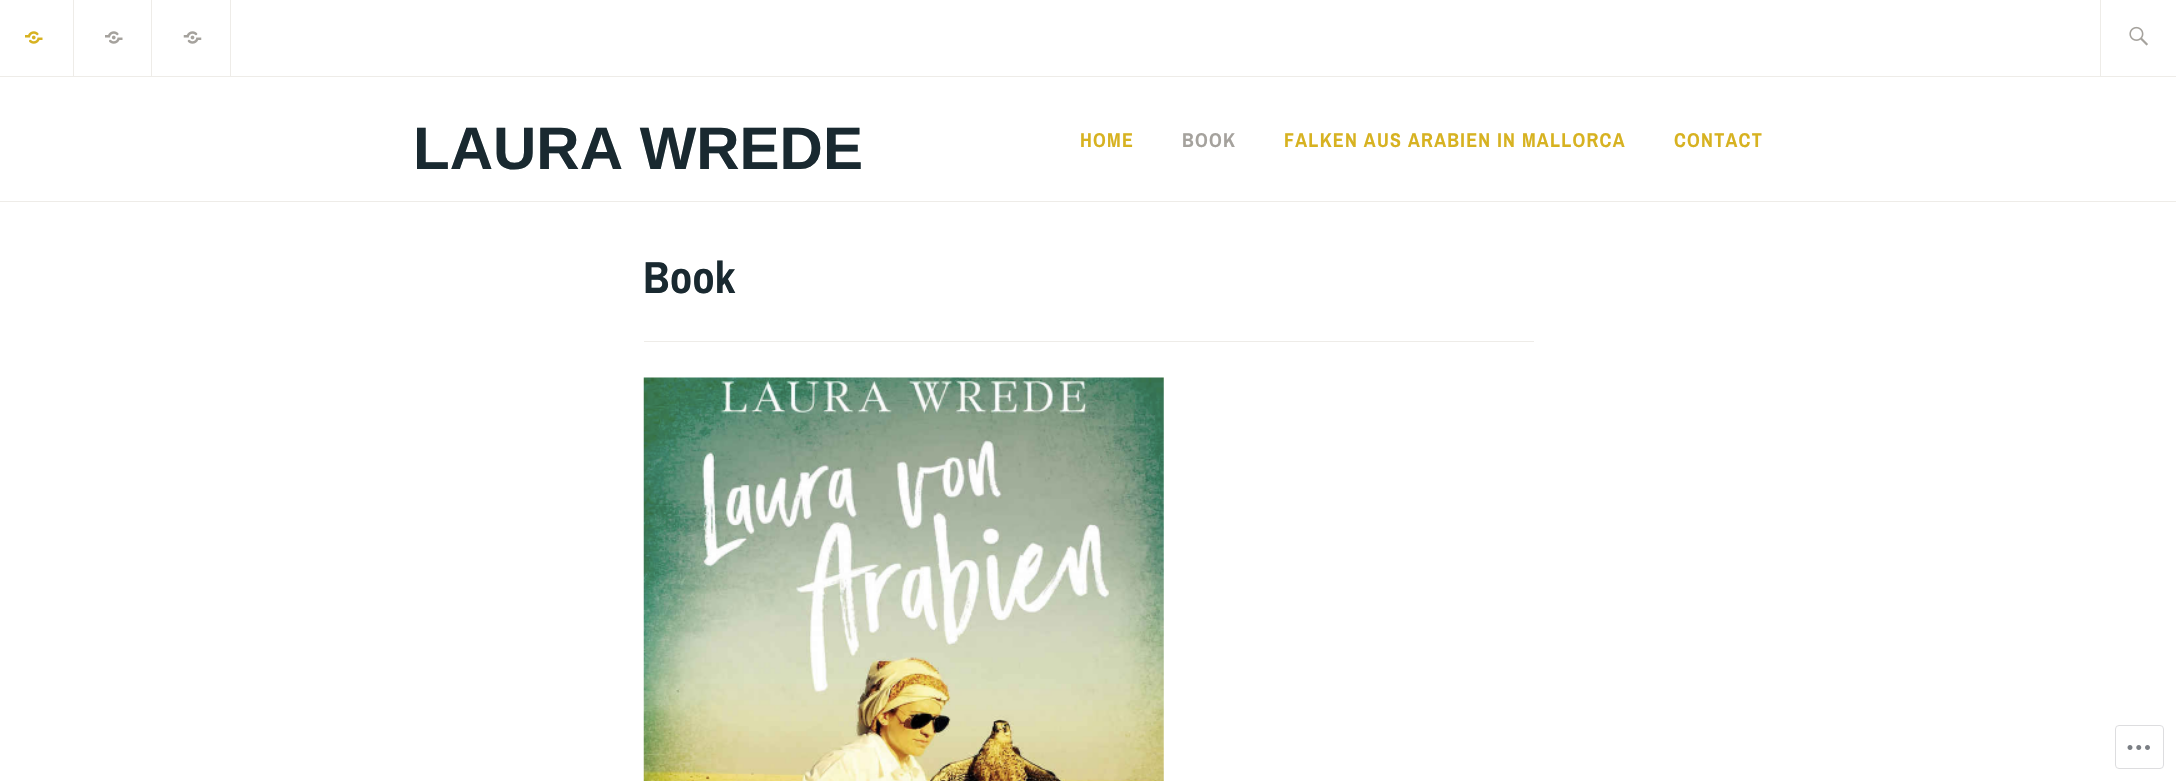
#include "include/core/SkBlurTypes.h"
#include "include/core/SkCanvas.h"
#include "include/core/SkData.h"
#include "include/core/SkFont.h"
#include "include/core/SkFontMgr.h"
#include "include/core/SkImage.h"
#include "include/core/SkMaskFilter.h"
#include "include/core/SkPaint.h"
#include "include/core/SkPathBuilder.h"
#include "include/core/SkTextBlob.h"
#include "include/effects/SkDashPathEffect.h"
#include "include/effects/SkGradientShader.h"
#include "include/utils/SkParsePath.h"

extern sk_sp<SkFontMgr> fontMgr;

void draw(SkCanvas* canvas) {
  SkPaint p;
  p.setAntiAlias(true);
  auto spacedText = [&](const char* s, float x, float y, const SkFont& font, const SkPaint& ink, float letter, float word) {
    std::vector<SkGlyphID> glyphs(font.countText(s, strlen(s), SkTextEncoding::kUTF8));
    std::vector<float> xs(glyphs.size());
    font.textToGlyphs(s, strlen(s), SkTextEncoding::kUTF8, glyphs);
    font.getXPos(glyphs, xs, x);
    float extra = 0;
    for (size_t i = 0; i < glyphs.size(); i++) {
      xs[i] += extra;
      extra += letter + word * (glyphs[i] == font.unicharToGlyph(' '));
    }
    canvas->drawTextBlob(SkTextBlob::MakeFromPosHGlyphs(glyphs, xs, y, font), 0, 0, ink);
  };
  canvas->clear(SK_ColorWHITE);
  p.setColor(SkColorSetRGB(238, 236, 232));
  canvas->drawRect(SkRect::MakeLTRB(0, 201, 2176, 202), p);
  canvas->drawRect(SkRect::MakeLTRB(0, 76, 2176, 77), p);
  canvas->drawRect(SkRect::MakeLTRB(73, 0, 74, 76), p);
  canvas->drawImageRect(SkImages::DeferredFromEncodedData(SkData::MakeFromFileName("images/1.png")), SkRect::MakeLTRB(25, 31, 43, 44), SkSamplingOptions());
  canvas->drawRect(SkRect::MakeLTRB(151, 0, 152, 76), p);
  canvas->drawImageRect(SkImages::DeferredFromEncodedData(SkData::MakeFromFileName("images/2.png")), SkRect::MakeLTRB(105, 31, 123, 44), SkSamplingOptions());
  canvas->drawRect(SkRect::MakeLTRB(230, 0, 231, 76), p);
  canvas->drawImageRect(SkImages::DeferredFromEncodedData(SkData::MakeFromFileName("images/3.png")), SkRect::MakeLTRB(183, 31, 202, 44), SkSamplingOptions());
  canvas->drawRect(SkRect::MakeLTRB(2100, 0, 2101, 76), p);
  canvas->drawImageRect(SkImages::DeferredFromEncodedData(SkData::MakeFromFileName("images/4.png")), SkRect::MakeLTRB(2129, 26, 2148, 46), SkSamplingOptions());
  canvas->drawRect(SkRect::MakeLTRB(644, 341, 1534, 342), p);
  canvas->drawImageRect(SkImages::DeferredFromEncodedData(SkData::MakeFromFileName("images/5.png")), SkRect::MakeLTRB(643, 377, 1164, 781), SkSamplingOptions());
  p.setStyle(SkPaint::kStroke_Style);
  p.setStrokeWidth(1);
  p.setColor(SkColorSetRGB(221, 221, 223));
  canvas->drawRoundRect(SkRect::MakeLTRB(2115.5f, 725.5f, 2163.5f, 768.5f), 3.5f, 3.5f, p);
  canvas->drawImageRect(SkImages::DeferredFromEncodedData(SkData::MakeFromFileName("images/6.png")), SkRect::MakeLTRB(2127, 745, 2150, 750), SkSamplingOptions());
  SkFont font1(fontMgr->matchFamilyStyle("Liberation Sans", SkFontStyle::Bold()), 60);
  font1.setSubpixel(true);
  p.setStyle(SkPaint::kFill_Style);
  p.setColor(SkColorSetRGB(25, 41, 48));
  canvas->drawString("LAURA WREDE", 413, 169, font1, p);
  SkFont font2(fontMgr->matchFamilyStyle("Archivo Narrow", SkFontStyle::Bold()), 20);
  font2.setSubpixel(true);
  p.setColor(SkColorSetRGB(215, 178, 33));
  spacedText("HOME", 1080, 147, font2, p, 1.25f, 0);
  p.setColor(SkColorSetRGB(165, 162, 157));
  spacedText("BOOK", 1182, 147, font2, p, 1.25f, 0);
  p.setColor(SkColorSetRGB(215, 178, 33));
  spacedText("FALKEN AUS ARABIEN IN MALLORCA", 1284, 147, font2, p, 1.25f, 0);
  spacedText("CONTACT", 1674, 147, font2, p, 1.25f, 0);
  SkFont font3(fontMgr->matchFamilyStyle("Archivo Narrow", SkFontStyle::Bold()), 45);
  font3.setSubpixel(true);
  p.setColor(SkColorSetRGB(25, 41, 48));
  canvas->drawString("Book", 643, 293, font3, p);
}
